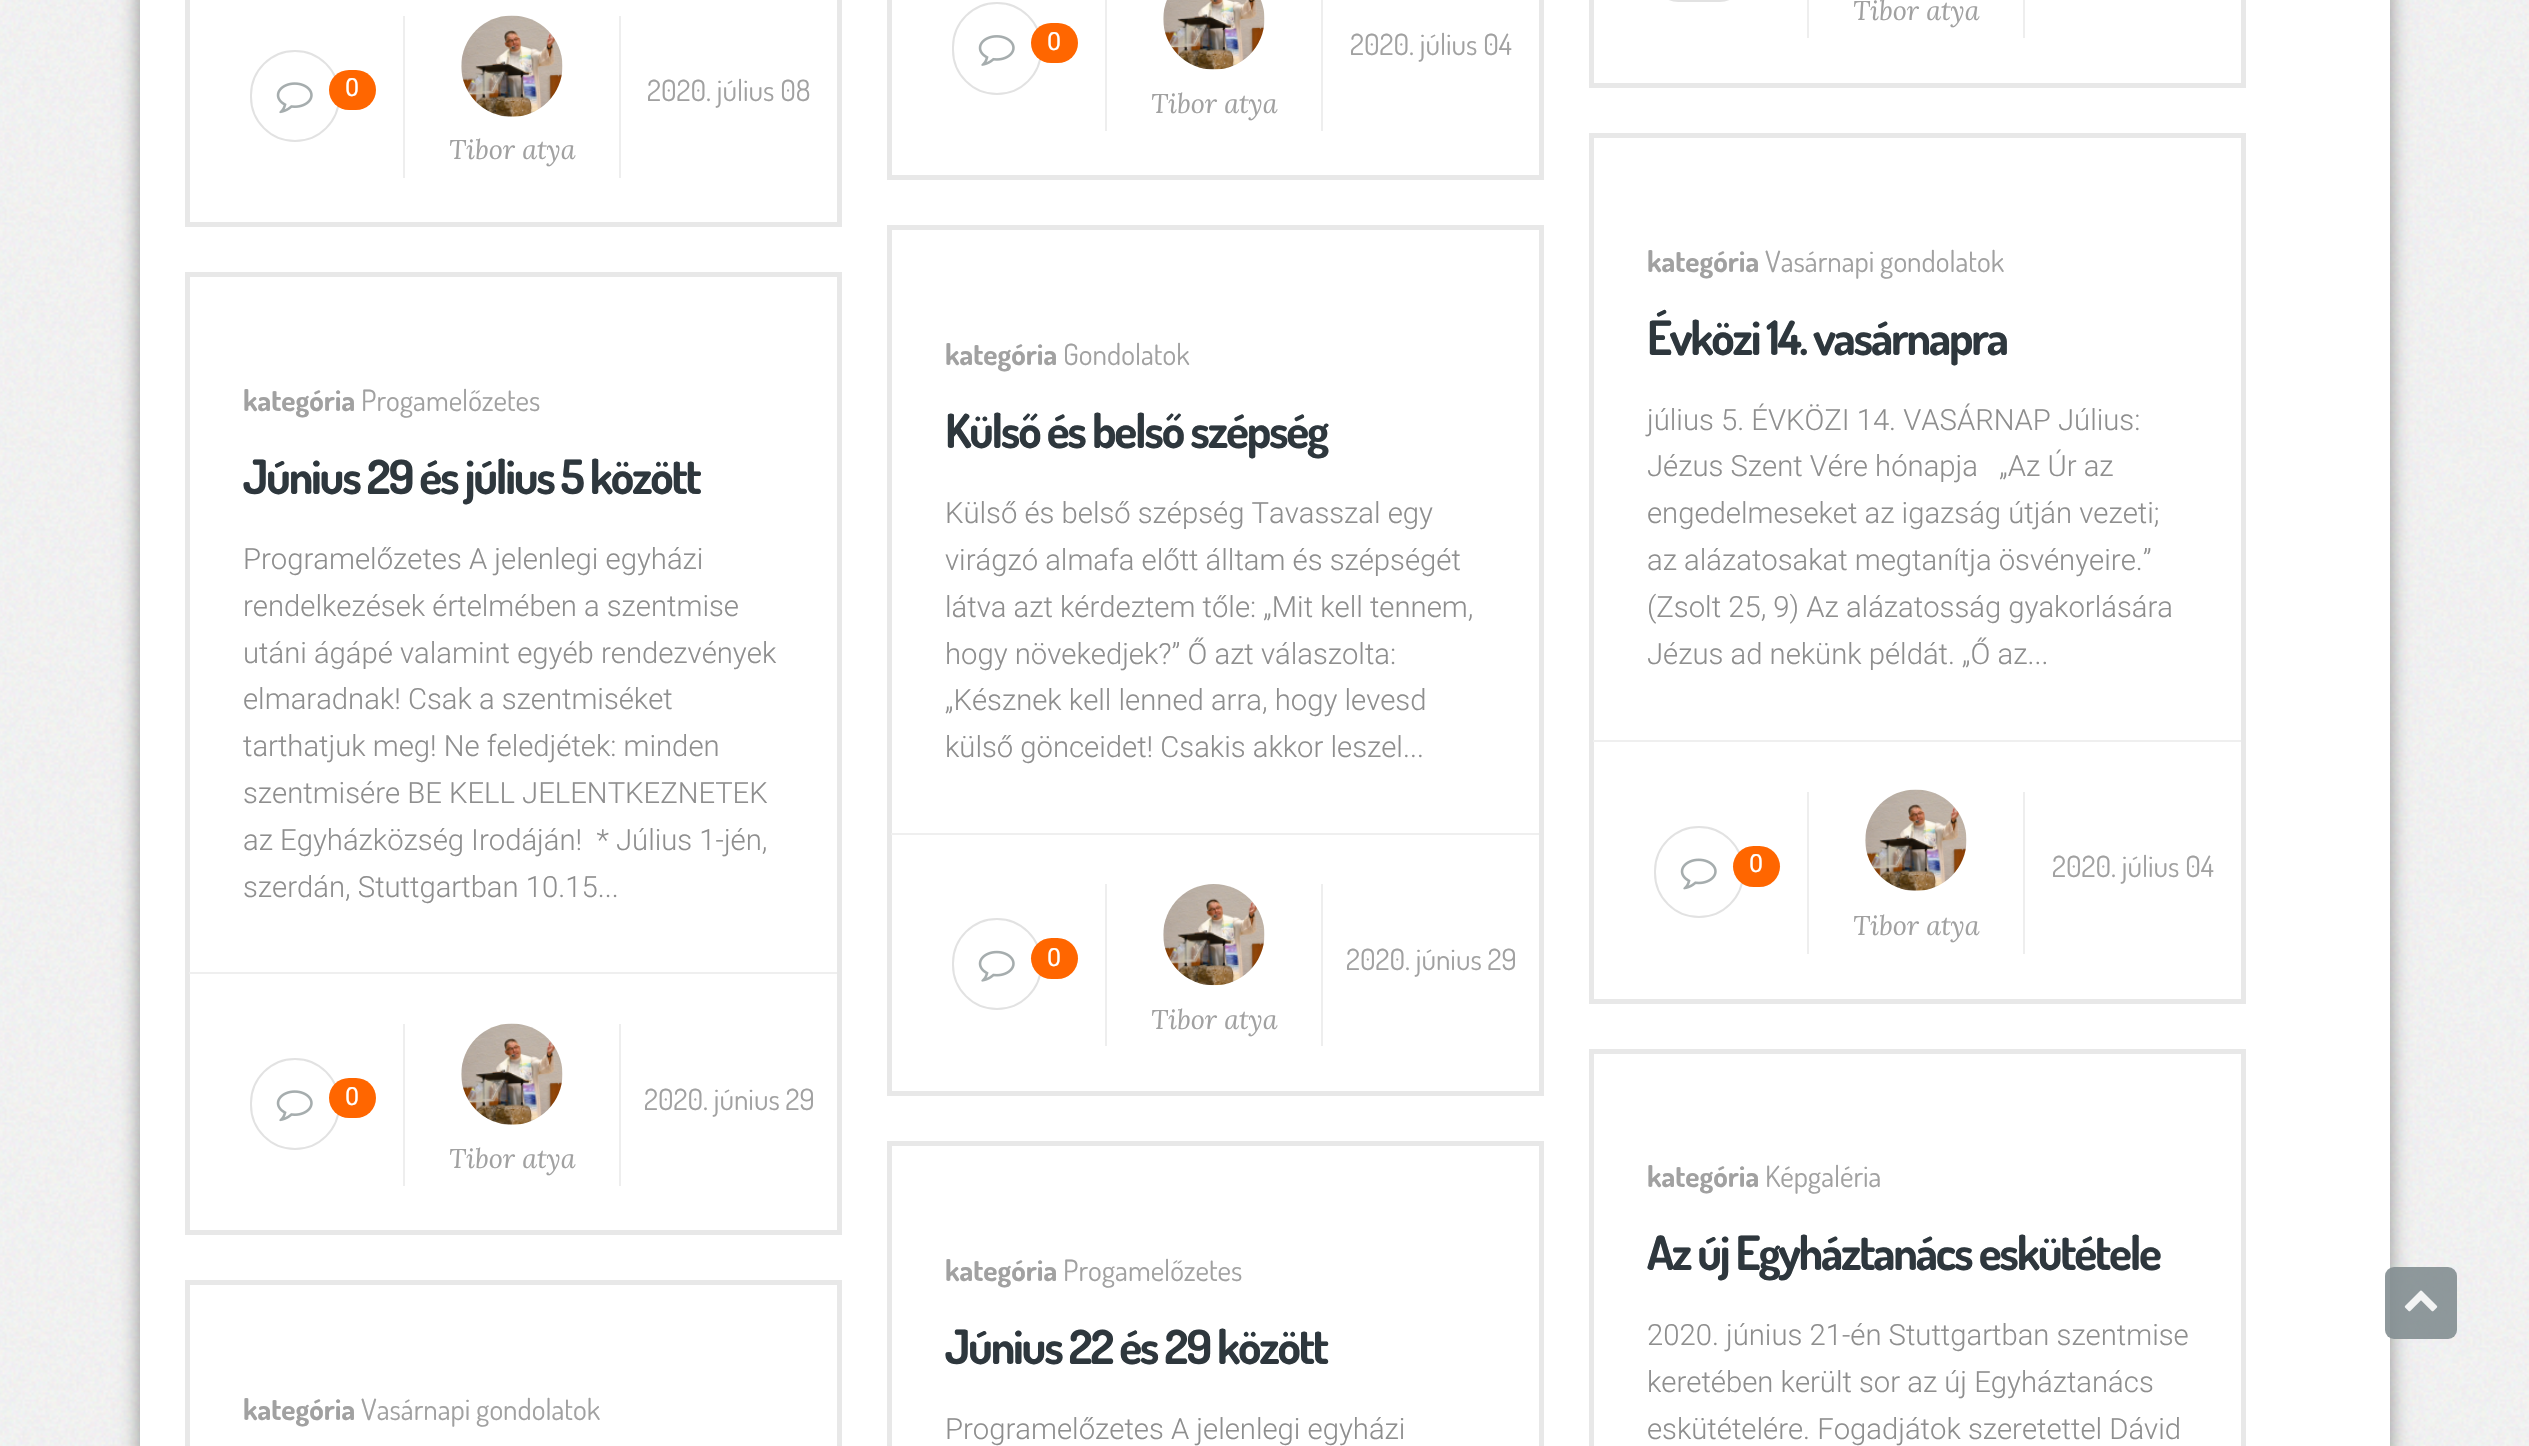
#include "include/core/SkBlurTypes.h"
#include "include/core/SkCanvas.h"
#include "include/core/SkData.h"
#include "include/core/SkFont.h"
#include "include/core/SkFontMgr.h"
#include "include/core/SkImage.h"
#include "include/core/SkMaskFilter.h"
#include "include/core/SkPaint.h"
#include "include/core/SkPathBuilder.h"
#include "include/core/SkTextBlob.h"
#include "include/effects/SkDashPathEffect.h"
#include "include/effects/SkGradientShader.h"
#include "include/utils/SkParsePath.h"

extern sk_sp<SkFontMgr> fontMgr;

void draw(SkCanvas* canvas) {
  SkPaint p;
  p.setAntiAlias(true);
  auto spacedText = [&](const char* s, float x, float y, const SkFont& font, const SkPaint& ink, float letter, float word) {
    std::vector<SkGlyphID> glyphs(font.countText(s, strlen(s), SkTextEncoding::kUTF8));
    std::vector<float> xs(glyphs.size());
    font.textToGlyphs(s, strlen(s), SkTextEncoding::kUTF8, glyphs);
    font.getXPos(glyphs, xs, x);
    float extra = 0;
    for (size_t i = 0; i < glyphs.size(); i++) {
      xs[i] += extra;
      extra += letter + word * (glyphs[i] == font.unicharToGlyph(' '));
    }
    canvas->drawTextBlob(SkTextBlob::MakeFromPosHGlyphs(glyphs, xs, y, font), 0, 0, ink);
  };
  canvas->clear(SK_ColorWHITE);
  canvas->drawImageRect(SkImages::DeferredFromEncodedData(SkData::MakeFromFileName("images/1.png")), SkRect::MakeLTRB(0, 0, 2529, 1446), SkSamplingOptions());
  p.setColor(SkColorSetARGB(102, 0, 0, 0));
  p.setMaskFilter(SkMaskFilter::MakeBlur(kNormal_SkBlurStyle, 10));
  canvas->drawRect(SkRect::MakeLTRB(140, -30, 2390, 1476), p);
  p.setMaskFilter(nullptr);
  p.setColor(SK_ColorWHITE);
  canvas->drawRect(SkRect::MakeLTRB(140, 0, 2390, 1446), p);
  p.setStyle(SkPaint::kStroke_Style);
  p.setStrokeWidth(5);
  p.setColor(SkColorSetRGB(232, 232, 232));
  canvas->drawRect(SkRect::MakeLTRB(1591.5f, -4.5f, 2243.5f, 85.5f), p);
  p.setStyle(SkPaint::kFill_Style);
  p.setColor(SkColorSetRGB(238, 238, 238));
  canvas->drawRect(SkRect::MakeLTRB(1807, 0, 1809, 38), p);
  p.setStyle(SkPaint::kStroke_Style);
  p.setStrokeWidth(2);
  p.setColor(SkColorSetRGB(226, 226, 226));
  canvas->drawRoundRect(SkRect::MakeLTRB(1655, -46, 1743, 1), 44, 44, p);
  p.setStyle(SkPaint::kFill_Style);
  p.setColor(SkColorSetRGB(238, 238, 238));
  canvas->drawRect(SkRect::MakeLTRB(2023, 0, 2025, 38), p);
  p.setStyle(SkPaint::kStroke_Style);
  p.setStrokeWidth(5);
  p.setColor(SkColorSetRGB(232, 232, 232));
  canvas->drawRect(SkRect::MakeLTRB(187.5f, -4.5f, 839.5f, 224.5f), p);
  p.setStyle(SkPaint::kFill_Style);
  p.setColor(SkColorSetRGB(238, 238, 238));
  canvas->drawRect(SkRect::MakeLTRB(403, 16, 405, 178), p);
  p.setStyle(SkPaint::kStroke_Style);
  p.setStrokeWidth(2);
  p.setColor(SkColorSetRGB(226, 226, 226));
  canvas->drawRoundRect(SkRect::MakeLTRB(251, 51, 339, 141), 44, 44, p);
  p.setStyle(SkPaint::kFill_Style);
  p.setColor(SkColorSetRGB(255, 102, 0));
  canvas->drawRoundRect(SkRect::MakeLTRB(329, 70, 376, 110), 20, 20, p);
  canvas->drawImageRect(SkImages::DeferredFromEncodedData(SkData::MakeFromFileName("images/2.png")), SkRect::MakeLTRB(276, 82, 313, 114), SkSamplingOptions());
  p.setColor(SkColorSetRGB(238, 238, 238));
  canvas->drawRect(SkRect::MakeLTRB(619, 16, 621, 178), p);
  canvas->drawImageRect(SkImages::DeferredFromEncodedData(SkData::MakeFromFileName("images/3.png")), SkRect::MakeLTRB(461, 15, 563, 117), SkSamplingOptions());
  p.setStyle(SkPaint::kStroke_Style);
  p.setStrokeWidth(5);
  p.setColor(SkColorSetRGB(232, 232, 232));
  canvas->drawRect(SkRect::MakeLTRB(889.5f, -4.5f, 1541.5f, 177.5f), p);
  p.setStyle(SkPaint::kFill_Style);
  p.setColor(SkColorSetRGB(238, 238, 238));
  canvas->drawRect(SkRect::MakeLTRB(1105, 0, 1107, 131), p);
  p.setStyle(SkPaint::kStroke_Style);
  p.setStrokeWidth(2);
  p.setColor(SkColorSetRGB(226, 226, 226));
  canvas->drawRoundRect(SkRect::MakeLTRB(953, 3, 1041, 94), 44, 44, p);
  p.setStyle(SkPaint::kFill_Style);
  p.setColor(SkColorSetRGB(255, 102, 0));
  canvas->drawRoundRect(SkRect::MakeLTRB(1031, 23, 1078, 63), 20, 20, p);
  canvas->drawImageRect(SkImages::DeferredFromEncodedData(SkData::MakeFromFileName("images/4.png")), SkRect::MakeLTRB(978, 35, 1015, 66), SkSamplingOptions());
  p.setColor(SkColorSetRGB(238, 238, 238));
  canvas->drawRect(SkRect::MakeLTRB(1321, 0, 1323, 131), p);
  canvas->drawImageRect(SkImages::DeferredFromEncodedData(SkData::MakeFromFileName("images/5.png")), SkRect::MakeLTRB(1163, 0, 1265, 70), SkSamplingOptions());
  p.setStyle(SkPaint::kStroke_Style);
  p.setStrokeWidth(5);
  p.setColor(SkColorSetRGB(232, 232, 232));
  canvas->drawRect(SkRect::MakeLTRB(187.5f, 274.5f, 839.5f, 1232.5f), p);
  p.setStyle(SkPaint::kFill_Style);
  p.setColor(SkColorSetRGB(239, 239, 239));
  canvas->drawRect(SkRect::MakeLTRB(189, 972, 837, 974), p);
  p.setColor(SkColorSetRGB(238, 238, 238));
  canvas->drawRect(SkRect::MakeLTRB(403, 1024, 405, 1186), p);
  p.setStyle(SkPaint::kStroke_Style);
  p.setStrokeWidth(2);
  p.setColor(SkColorSetRGB(226, 226, 226));
  canvas->drawRoundRect(SkRect::MakeLTRB(251, 1059, 339, 1149), 44, 44, p);
  p.setStyle(SkPaint::kFill_Style);
  p.setColor(SkColorSetRGB(255, 102, 0));
  canvas->drawRoundRect(SkRect::MakeLTRB(329, 1078, 376, 1118), 20, 20, p);
  canvas->drawImageRect(SkImages::DeferredFromEncodedData(SkData::MakeFromFileName("images/2.png")), SkRect::MakeLTRB(276, 1090, 313, 1122), SkSamplingOptions());
  p.setColor(SkColorSetRGB(238, 238, 238));
  canvas->drawRect(SkRect::MakeLTRB(619, 1024, 621, 1186), p);
  canvas->drawImageRect(SkImages::DeferredFromEncodedData(SkData::MakeFromFileName("images/3.png")), SkRect::MakeLTRB(461, 1023, 563, 1125), SkSamplingOptions());
  p.setStyle(SkPaint::kStroke_Style);
  p.setStrokeWidth(5);
  p.setColor(SkColorSetRGB(232, 232, 232));
  canvas->drawRect(SkRect::MakeLTRB(889.5f, 227.5f, 1541.5f, 1093.5f), p);
  p.setStyle(SkPaint::kFill_Style);
  p.setColor(SkColorSetRGB(239, 239, 239));
  canvas->drawRect(SkRect::MakeLTRB(891, 833, 1539, 835), p);
  p.setColor(SkColorSetRGB(238, 238, 238));
  canvas->drawRect(SkRect::MakeLTRB(1105, 884, 1107, 1046), p);
  p.setStyle(SkPaint::kStroke_Style);
  p.setStrokeWidth(2);
  p.setColor(SkColorSetRGB(226, 226, 226));
  canvas->drawRoundRect(SkRect::MakeLTRB(953, 919, 1041, 1009), 44, 44, p);
  p.setStyle(SkPaint::kFill_Style);
  p.setColor(SkColorSetRGB(255, 102, 0));
  canvas->drawRoundRect(SkRect::MakeLTRB(1031, 938, 1078, 979), 20.5f, 20.5f, p);
  canvas->drawImageRect(SkImages::DeferredFromEncodedData(SkData::MakeFromFileName("images/6.png")), SkRect::MakeLTRB(978, 950, 1015, 982), SkSamplingOptions());
  p.setColor(SkColorSetRGB(238, 238, 238));
  canvas->drawRect(SkRect::MakeLTRB(1321, 884, 1323, 1046), p);
  canvas->drawImageRect(SkImages::DeferredFromEncodedData(SkData::MakeFromFileName("images/7.png")), SkRect::MakeLTRB(1163, 884, 1265, 986), SkSamplingOptions());
  p.setStyle(SkPaint::kStroke_Style);
  p.setStrokeWidth(5);
  p.setColor(SkColorSetRGB(232, 232, 232));
  canvas->drawRect(SkRect::MakeLTRB(1591.5f, 135.5f, 2243.5f, 1001.5f), p);
  p.setStyle(SkPaint::kFill_Style);
  p.setColor(SkColorSetRGB(239, 239, 239));
  canvas->drawRect(SkRect::MakeLTRB(1593, 740, 2241, 742), p);
  p.setColor(SkColorSetRGB(238, 238, 238));
  canvas->drawRect(SkRect::MakeLTRB(1807, 792, 1809, 954), p);
  p.setStyle(SkPaint::kStroke_Style);
  p.setStrokeWidth(2);
  p.setColor(SkColorSetRGB(226, 226, 226));
  canvas->drawRoundRect(SkRect::MakeLTRB(1655, 827, 1743, 917), 44, 44, p);
  p.setStyle(SkPaint::kFill_Style);
  p.setColor(SkColorSetRGB(255, 102, 0));
  canvas->drawRoundRect(SkRect::MakeLTRB(1733, 846, 1780, 887), 20.5f, 20.5f, p);
  canvas->drawImageRect(SkImages::DeferredFromEncodedData(SkData::MakeFromFileName("images/8.png")), SkRect::MakeLTRB(1680, 858, 1717, 890), SkSamplingOptions());
  p.setColor(SkColorSetRGB(238, 238, 238));
  canvas->drawRect(SkRect::MakeLTRB(2023, 792, 2025, 954), p);
  canvas->drawImageRect(SkImages::DeferredFromEncodedData(SkData::MakeFromFileName("images/9.png")), SkRect::MakeLTRB(1865, 789, 1967, 891), SkSamplingOptions());
  p.setStyle(SkPaint::kStroke_Style);
  p.setStrokeWidth(5);
  p.setColor(SkColorSetRGB(232, 232, 232));
  canvas->drawRect(SkRect::MakeLTRB(187.5f, 1282.5f, 839.5f, 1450.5f), p);
  canvas->drawRect(SkRect::MakeLTRB(889.5f, 1143.5f, 1541.5f, 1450.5f), p);
  canvas->drawRect(SkRect::MakeLTRB(1591.5f, 1051.5f, 2243.5f, 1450.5f), p);
  p.setStyle(SkPaint::kFill_Style);
  p.setColor(SkColorSetARGB(227, 129, 140, 144));
  canvas->drawRoundRect(SkRect::MakeLTRB(2385, 1267, 2457, 1339), 9, 9, p);
  canvas->drawImageRect(SkImages::DeferredFromEncodedData(SkData::MakeFromFileName("images/10.png")), SkRect::MakeLTRB(2404, 1290, 2438, 1312), SkSamplingOptions());
  SkFont font1(fontMgr->matchFamilyStyle("Lora", SkFontStyle::Italic()), 27);
  font1.setSubpixel(true);
  p.setColor(SkColorSetRGB(161, 161, 161));
  canvas->drawString("Tibor atya", 1853, 20, font1, p);
  SkFont font2(fontMgr->matchFamilyStyle("Roboto", SkFontStyle::Normal()), 25);
  font2.setSubpixel(true);
  p.setColor(SK_ColorWHITE);
  canvas->drawString("0", 345, 96, font2, p);
  SkFont font3(fontMgr->matchFamilyStyle("Dosis", SkFontStyle::Normal()), 29.25f);
  font3.setSubpixel(true);
  p.setColor(SkColorSetRGB(161, 161, 161));
  canvas->drawString("2020. július 08", 647, 101, font3, p);
  canvas->drawString("Tibor atya", 449, 159, font1, p);
  p.setColor(SK_ColorWHITE);
  canvas->drawString("0", 1047, 50, font2, p);
  p.setColor(SkColorSetRGB(161, 161, 161));
  canvas->drawString("2020. július 04", 1350, 55, font3, p);
  canvas->drawString("Tibor atya", 1151, 113, font1, p);
  SkFont font4(fontMgr->matchFamilyStyle("Dosis", SkFontStyle::Bold()), 29.25f);
  font4.setSubpixel(true);
  canvas->drawString("kategória", 243, 411, font4, p);
  canvas->drawString("Progamelőzetes", 361, 411, font3, p);
  SkFont font5(fontMgr->matchFamilyStyle("Dosis", SkFontStyle::Bold()), 47.25f);
  font5.setSubpixel(true);
  p.setColor(SkColorSetRGB(46, 55, 61));
  spacedText("Június 29 és július 5 között", 243, 494, font5, p, -2.25f, 0);
  SkFont font6(fontMgr->matchFamilyStyle("Roboto", SkFontStyle(300, SkFontStyle::kNormal_Width, SkFontStyle::kUpright_Slant)), 29.25f);
  font6.setSubpixel(true);
  p.setColor(SkColorSetRGB(142, 142, 142));
  canvas->drawString("Programelőzetes A jelenlegi egyházi", 243, 569, font6, p);
  canvas->drawString("rendelkezések értelmében a szentmise", 243, 616, font6, p);
  canvas->drawString("utáni ágápé valamint egyéb rendezvények", 243, 663, font6, p);
  canvas->drawString("elmaradnak! Csak a szentmiséket", 243, 709, font6, p);
  canvas->drawString("tarthatjuk meg! Ne feledjétek: minden", 243, 756, font6, p);
  canvas->drawString("szentmisére BE KELL JELENTKEZNETEK", 243, 803, font6, p);
  canvas->drawString("az Egyházközség Irodáján!  * Július 1-jén,", 243, 850, font6, p);
  canvas->drawString("szerdán, Stuttgartban 10.15...", 243, 897, font6, p);
  p.setColor(SK_ColorWHITE);
  canvas->drawString("0", 345, 1105, font2, p);
  p.setColor(SkColorSetRGB(161, 161, 161));
  canvas->drawString("2020. június 29", 644, 1110, font3, p);
  canvas->drawString("Tibor atya", 449, 1168, font1, p);
  canvas->drawString("kategória", 945, 365, font4, p);
  canvas->drawString("Gondolatok", 1063, 365, font3, p);
  p.setColor(SkColorSetRGB(46, 55, 61));
  spacedText("Külső és belső szépség", 945, 448, font5, p, -2.25f, 0);
  p.setColor(SkColorSetRGB(142, 142, 142));
  canvas->drawString("Külső és belső szépség Tavasszal egy", 945, 523, font6, p);
  canvas->drawString("virágzó almafa előtt álltam és szépségét", 945, 570, font6, p);
  canvas->drawString("látva azt kérdeztem tőle: „Mit kell tennem,", 945, 617, font6, p);
  canvas->drawString("hogy növekedjek?” Ő azt válaszolta:", 945, 664, font6, p);
  canvas->drawString("„Késznek kell lenned arra, hogy levesd", 945, 710, font6, p);
  canvas->drawString("külső gönceidet! Csakis akkor leszel...", 945, 757, font6, p);
  p.setColor(SK_ColorWHITE);
  canvas->drawString("0", 1047, 966, font2, p);
  p.setColor(SkColorSetRGB(161, 161, 161));
  canvas->drawString("2020. június 29", 1346, 970, font3, p);
  canvas->drawString("Tibor atya", 1151, 1029, font1, p);
  canvas->drawString("kategória", 1647, 272, font4, p);
  canvas->drawString("Vasárnapi gondolatok", 1765, 272, font3, p);
  p.setColor(SkColorSetRGB(46, 55, 61));
  spacedText("Évközi 14. vasárnapra", 1647, 355, font5, p, -2.25f, 0);
  p.setColor(SkColorSetRGB(142, 142, 142));
  canvas->drawString("július 5. ÉVKÖZI 14. VASÁRNAP Július:", 1647, 430, font6, p);
  canvas->drawString("Jézus Szent Vére hónapja   „Az Úr az", 1647, 476, font6, p);
  canvas->drawString("engedelmeseket az igazság útján vezeti;", 1647, 523, font6, p);
  canvas->drawString("az alázatosakat megtanítja ösvényeire.”", 1647, 570, font6, p);
  canvas->drawString("(Zsolt 25, 9) Az alázatosság gyakorlására", 1647, 617, font6, p);
  canvas->drawString("Jézus ad nekünk példát. „Ő az...", 1647, 664, font6, p);
  p.setColor(SK_ColorWHITE);
  canvas->drawString("0", 1749, 872, font2, p);
  p.setColor(SkColorSetRGB(161, 161, 161));
  canvas->drawString("2020. július 04", 2052, 877, font3, p);
  canvas->drawString("Tibor atya", 1853, 935, font1, p);
  canvas->drawString("kategória", 243, 1420, font4, p);
  canvas->drawString("Vasárnapi gondolatok", 361, 1420, font3, p);
  canvas->drawString("kategória", 945, 1281, font4, p);
  canvas->drawString("Progamelőzetes", 1063, 1281, font3, p);
  p.setColor(SkColorSetRGB(46, 55, 61));
  spacedText("Június 22 és 29 között", 945, 1364, font5, p, -2.25f, 0);
  p.setColor(SkColorSetRGB(142, 142, 142));
  canvas->drawString("Programelőzetes A jelenlegi egyházi", 945, 1439, font6, p);
  p.setColor(SkColorSetRGB(161, 161, 161));
  canvas->drawString("kategória", 1647, 1187, font4, p);
  canvas->drawString("Képgaléria", 1765, 1187, font3, p);
  p.setColor(SkColorSetRGB(46, 55, 61));
  spacedText("Az új Egyháztanács eskütétele", 1647, 1270, font5, p, -2.25f, 0);
  p.setColor(SkColorSetRGB(142, 142, 142));
  canvas->drawString("2020. június 21-én Stuttgartban szentmise", 1647, 1345, font6, p);
  canvas->drawString("keretében került sor az új Egyháztanács", 1647, 1392, font6, p);
  canvas->drawString("eskütételére. Fogadjátok szeretettel Dávid", 1647, 1439, font6, p);
}
